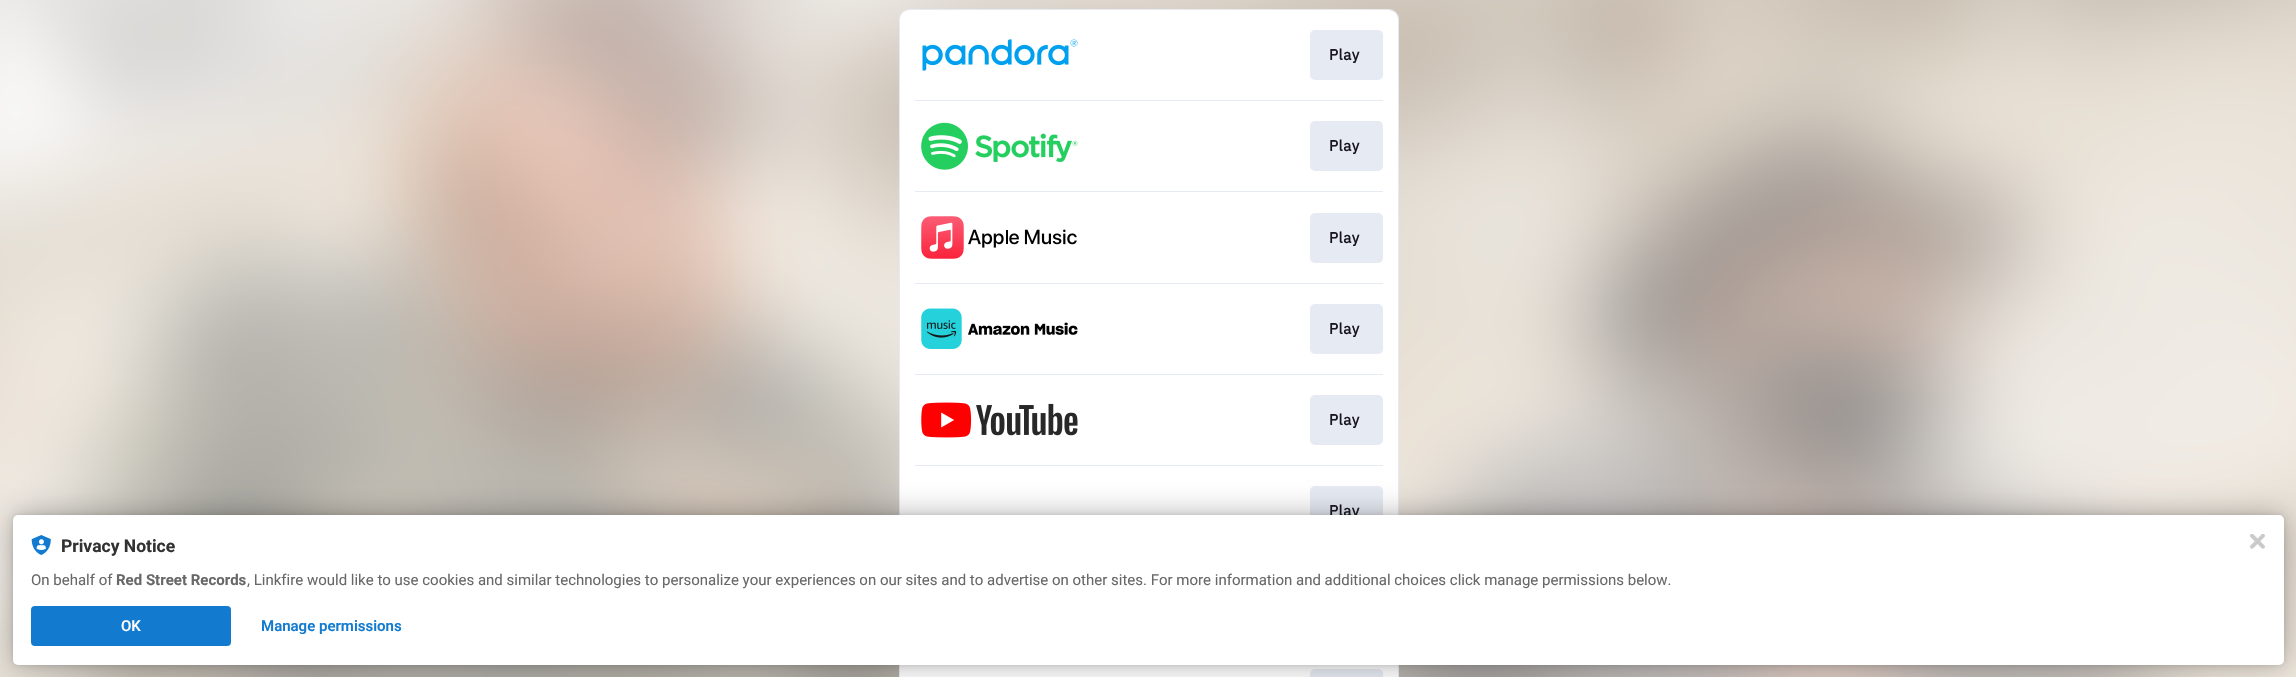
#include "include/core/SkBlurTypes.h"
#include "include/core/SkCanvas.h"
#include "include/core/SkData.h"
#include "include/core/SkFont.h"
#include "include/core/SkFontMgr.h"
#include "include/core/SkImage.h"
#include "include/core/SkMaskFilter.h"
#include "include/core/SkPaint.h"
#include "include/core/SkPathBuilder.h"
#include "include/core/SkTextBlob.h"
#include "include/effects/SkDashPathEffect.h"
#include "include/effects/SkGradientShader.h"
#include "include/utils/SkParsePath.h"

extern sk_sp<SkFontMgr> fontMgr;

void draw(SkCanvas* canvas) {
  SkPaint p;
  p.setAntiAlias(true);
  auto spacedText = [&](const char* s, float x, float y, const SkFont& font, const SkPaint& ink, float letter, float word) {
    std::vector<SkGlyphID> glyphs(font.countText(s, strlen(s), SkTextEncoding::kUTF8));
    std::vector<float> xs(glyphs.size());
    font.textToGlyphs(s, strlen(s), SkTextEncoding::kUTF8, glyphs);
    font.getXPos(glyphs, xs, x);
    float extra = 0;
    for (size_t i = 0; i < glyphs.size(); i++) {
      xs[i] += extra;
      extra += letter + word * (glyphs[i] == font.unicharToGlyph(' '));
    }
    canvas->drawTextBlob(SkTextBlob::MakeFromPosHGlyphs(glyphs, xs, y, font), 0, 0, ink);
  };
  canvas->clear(SK_ColorWHITE);
  canvas->drawImageRect(SkImages::DeferredFromEncodedData(SkData::MakeFromFileName("images/1.png")), SkRect::MakeLTRB(0, 0, 2296, 677), SkSamplingOptions());
  p.setStyle(SkPaint::kStroke_Style);
  p.setStrokeWidth(1);
  p.setColor(SkColorSetRGB(230, 234, 242));
  canvas->drawRoundRect(SkRect::MakeLTRB(899.5f, 9.5f, 1398.5f, 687.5f), 9.5f, 9.5f, p);
  p.setStyle(SkPaint::kFill_Style);
  p.setColor(SK_ColorWHITE);
  canvas->drawRoundRect(SkRect::MakeLTRB(900, 10, 1398, 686), 9, 9, p);
  canvas->drawImageRect(SkImages::DeferredFromEncodedData(SkData::MakeFromFileName("images/2.png")), SkRect::MakeLTRB(922, 39, 1078, 71), SkSamplingOptions());
  p.setColor(SkColorSetRGB(230, 234, 242));
  canvas->drawRoundRect(SkRect::MakeLTRB(1310, 30, 1383, 80), 5, 5, p);
  canvas->drawRect(SkRect::MakeLTRB(915, 100, 1383, 101), p);
  canvas->drawImageRect(SkImages::DeferredFromEncodedData(SkData::MakeFromFileName("images/3.png")), SkRect::MakeLTRB(921, 122, 1078, 170), SkSamplingOptions());
  canvas->drawRoundRect(SkRect::MakeLTRB(1310, 121, 1383, 171), 5, 5, p);
  canvas->drawRect(SkRect::MakeLTRB(915, 191, 1383, 192), p);
  canvas->drawImageRect(SkImages::DeferredFromEncodedData(SkData::MakeFromFileName("images/4.png")), SkRect::MakeLTRB(921, 216, 1077, 259), SkSamplingOptions());
  canvas->drawRoundRect(SkRect::MakeLTRB(1310, 213, 1383, 263), 5, 5, p);
  canvas->drawRect(SkRect::MakeLTRB(915, 283, 1383, 284), p);
  canvas->drawImageRect(SkImages::DeferredFromEncodedData(SkData::MakeFromFileName("images/5.png")), SkRect::MakeLTRB(921, 308, 1078, 349), SkSamplingOptions());
  canvas->drawRoundRect(SkRect::MakeLTRB(1310, 304, 1383, 354), 5, 5, p);
  canvas->drawRect(SkRect::MakeLTRB(915, 374, 1383, 375), p);
  canvas->drawImageRect(SkImages::DeferredFromEncodedData(SkData::MakeFromFileName("images/6.png")), SkRect::MakeLTRB(921, 402, 1078, 438), SkSamplingOptions());
  canvas->drawRoundRect(SkRect::MakeLTRB(1310, 395, 1383, 445), 5, 5, p);
  canvas->drawRect(SkRect::MakeLTRB(915, 465, 1383, 466), p);
  canvas->drawRoundRect(SkRect::MakeLTRB(1310, 486, 1383, 536), 5, 5, p);
  canvas->drawRoundRect(SkRect::MakeLTRB(1310, 669, 1383, 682), 5, 5, p);
  p.setColor(SkColorSetARGB(31, 0, 0, 0));
  p.setMaskFilter(SkMaskFilter::MakeBlur(kNormal_SkBlurStyle, 2.5f));
  canvas->drawRoundRect(SkRect::MakeLTRB(13, 515, 2284, 665), 5, 5, p);
  p.setMaskFilter(nullptr);
  p.setColor(SkColorSetARGB(77, 0, 0, 0));
  p.setMaskFilter(SkMaskFilter::MakeBlur(kNormal_SkBlurStyle, 15));
  canvas->drawRoundRect(SkRect::MakeLTRB(13, 515, 2284, 665), 5, 5, p);
  p.setMaskFilter(nullptr);
  SkFont font1(fontMgr->matchFamilyStyle("IBM Plex Sans", SkFontStyle::Bold()), 15);
  font1.setSubpixel(true);
  p.setColor(SkColorSetRGB(24, 23, 33));
  spacedText("Play", 1329, 60, font1, p, 0.5f, 0);
  spacedText("Play", 1329, 151, font1, p, 0.5f, 0);
  spacedText("Play", 1329, 243, font1, p, 0.5f, 0);
  spacedText("Play", 1329, 334, font1, p, 0.5f, 0);
  spacedText("Play", 1329, 425, font1, p, 0.5f, 0);
  spacedText("Play", 1329, 516, font1, p, 0.5f, 0);
  p.setColor(SK_ColorWHITE);
  canvas->drawRoundRect(SkRect::MakeLTRB(13, 515, 2284, 665), 5, 5, p);
  canvas->drawImageRect(SkImages::DeferredFromEncodedData(SkData::MakeFromFileName("images/7.png")), SkRect::MakeLTRB(31, 535, 51, 555), SkSamplingOptions());
  SkFont font2(fontMgr->matchFamilyStyle("Roboto", SkFontStyle::Bold()), 17.5f);
  font2.setSubpixel(true);
  p.setColor(SkColorSetRGB(50, 50, 50));
  canvas->drawString("Privacy Notice", 61, 552, font2, p);
  SkFont font3(fontMgr->matchFamilyStyle("Roboto", SkFontStyle::Normal()), 15);
  font3.setSubpixel(true);
  p.setColor(SkColorSetRGB(104, 104, 104));
  canvas->drawString("On behalf of", 31, 585, font3, p);
  SkFont font4(fontMgr->matchFamilyStyle("Roboto", SkFontStyle::Bold()), 15);
  font4.setSubpixel(true);
  canvas->drawString("Red Street Records", 116, 585, font4, p);
  canvas->drawString(", Linkfire would like to use cookies and similar technologies to personalize your experiences on our sites and to advertise on other sites. For more information and additional choices click manage permissions below.", 247, 585, font3, p);
  p.setColor(SkColorSetRGB(19, 123, 207));
  canvas->drawRoundRect(SkRect::MakeLTRB(31, 606, 231, 646), 4, 4, p);
  SkFont font5(fontMgr->matchFamilyStyle("Roboto", SkFontStyle(500, SkFontStyle::kNormal_Width, SkFontStyle::kUpright_Slant)), 15);
  font5.setSubpixel(true);
  p.setColor(SK_ColorWHITE);
  canvas->drawString("OK", 121, 631, font5, p);
  SkFont font6(fontMgr->matchFamilyStyle("Roboto", SkFontStyle(600, SkFontStyle::kNormal_Width, SkFontStyle::kUpright_Slant)), 15);
  font6.setSubpixel(true);
  p.setColor(SkColorSetRGB(19, 123, 207));
  canvas->drawString("Manage permissions", 261, 631, font6, p);
  canvas->drawImageRect(SkImages::DeferredFromEncodedData(SkData::MakeFromFileName("images/8.png")), SkRect::MakeLTRB(2250, 534, 2265, 549), SkSamplingOptions());
}
